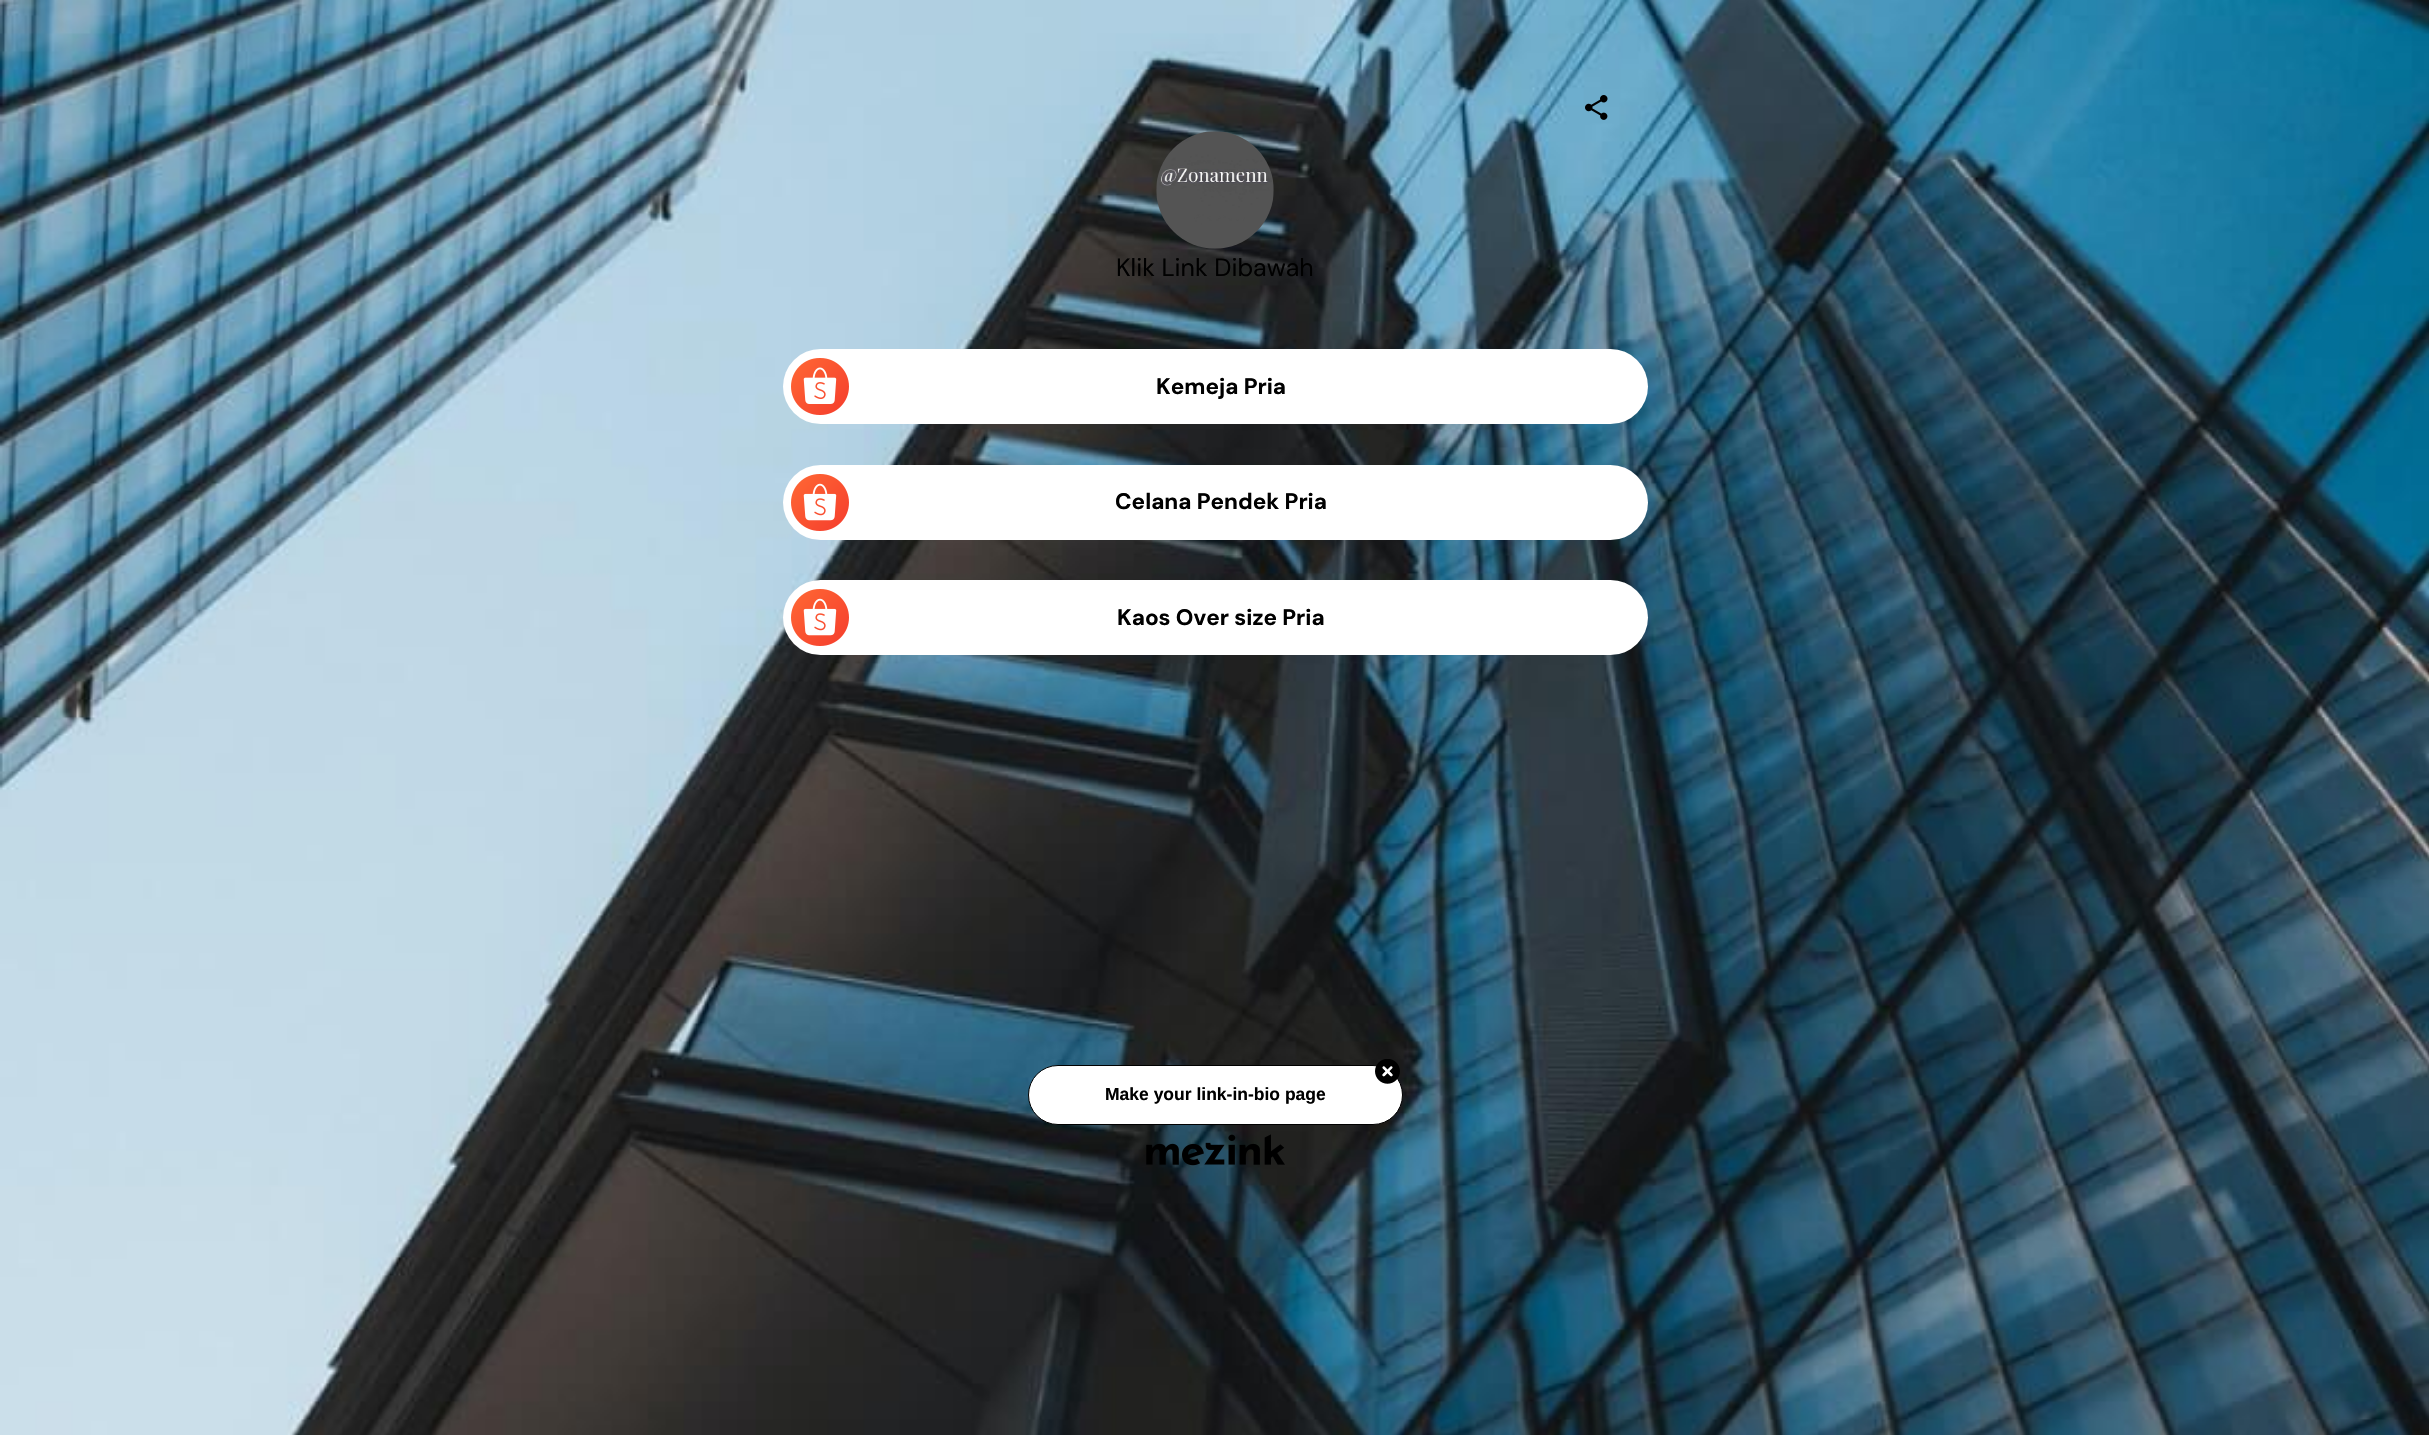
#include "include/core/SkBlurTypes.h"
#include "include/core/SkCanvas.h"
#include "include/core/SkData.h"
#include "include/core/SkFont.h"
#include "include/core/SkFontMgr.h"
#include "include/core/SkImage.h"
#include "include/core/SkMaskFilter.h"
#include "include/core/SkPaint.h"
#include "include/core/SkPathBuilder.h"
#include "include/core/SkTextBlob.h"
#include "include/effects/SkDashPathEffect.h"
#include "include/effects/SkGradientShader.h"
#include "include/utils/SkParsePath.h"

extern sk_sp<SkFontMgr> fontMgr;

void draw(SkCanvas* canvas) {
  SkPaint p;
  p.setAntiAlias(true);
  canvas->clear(SK_ColorWHITE);
  canvas->drawImageRect(SkImages::DeferredFromEncodedData(SkData::MakeFromFileName("images/1.png")), SkRect::MakeLTRB(0, 0, 2429, 1435), SkSamplingOptions());
  canvas->drawImageRect(SkImages::DeferredFromEncodedData(SkData::MakeFromFileName("images/2.png")), SkRect::MakeLTRB(1585, 95, 1608, 120), SkSamplingOptions());
  canvas->drawImageRect(SkImages::DeferredFromEncodedData(SkData::MakeFromFileName("images/3.png")), SkRect::MakeLTRB(1156, 131, 1274, 249), SkSamplingOptions());
  p.setColor(SK_ColorWHITE);
  canvas->drawRoundRect(SkRect::MakeLTRB(783, 349, 1648, 424), 37.5f, 37.5f, p);
  canvas->drawImageRect(SkImages::DeferredFromEncodedData(SkData::MakeFromFileName("images/4.png")), SkRect::MakeLTRB(791, 358, 849, 415), SkSamplingOptions());
  canvas->drawRoundRect(SkRect::MakeLTRB(783, 465, 1648, 540), 37.5f, 37.5f, p);
  canvas->drawImageRect(SkImages::DeferredFromEncodedData(SkData::MakeFromFileName("images/5.png")), SkRect::MakeLTRB(791, 474, 849, 531), SkSamplingOptions());
  canvas->drawRoundRect(SkRect::MakeLTRB(783, 580, 1648, 655), 37.5f, 37.5f, p);
  canvas->drawImageRect(SkImages::DeferredFromEncodedData(SkData::MakeFromFileName("images/6.png")), SkRect::MakeLTRB(791, 589, 849, 646), SkSamplingOptions());
  canvas->drawRoundRect(SkRect::MakeLTRB(1028.5f, 1065.5f, 1402.5f, 1124.5f), 29.5f, 29.5f, p);
  p.setStyle(SkPaint::kStroke_Style);
  p.setStrokeWidth(1);
  p.setColor(SK_ColorBLACK);
  canvas->drawRoundRect(SkRect::MakeLTRB(1028.5f, 1065.5f, 1402.5f, 1124.5f), 29.5f, 29.5f, p);
  canvas->drawImageRect(SkImages::DeferredFromEncodedData(SkData::MakeFromFileName("images/7.png")), SkRect::MakeLTRB(1375, 1059, 1400, 1084), SkSamplingOptions());
  canvas->drawImageRect(SkImages::DeferredFromEncodedData(SkData::MakeFromFileName("images/8.png")), SkRect::MakeLTRB(1146, 1134, 1285, 1166), SkSamplingOptions());
  SkFont font1(fontMgr->matchFamilyStyle("DM Sans", SkFontStyle::Normal()), 25);
  font1.setSubpixel(true);
  p.setStyle(SkPaint::kFill_Style);
  canvas->drawString("Klik Link Dibawah", 1116, 276, font1, p);
  SkFont font2(fontMgr->matchFamilyStyle("DM Sans", SkFontStyle::Bold()), 22.5f);
  font2.setSubpixel(true);
  canvas->drawString("Kemeja Pria", 1156, 394, font2, p);
  canvas->drawString("Celana Pendek Pria", 1115, 509, font2, p);
  canvas->drawString("Kaos Over size Pria", 1117, 625, font2, p);
  SkFont font3(fontMgr->matchFamilyStyle("Arimo", SkFontStyle::Bold()), 17.5f);
  font3.setSubpixel(true);
  canvas->drawString("Make your link-in-bio page", 1105, 1100, font3, p);
}
